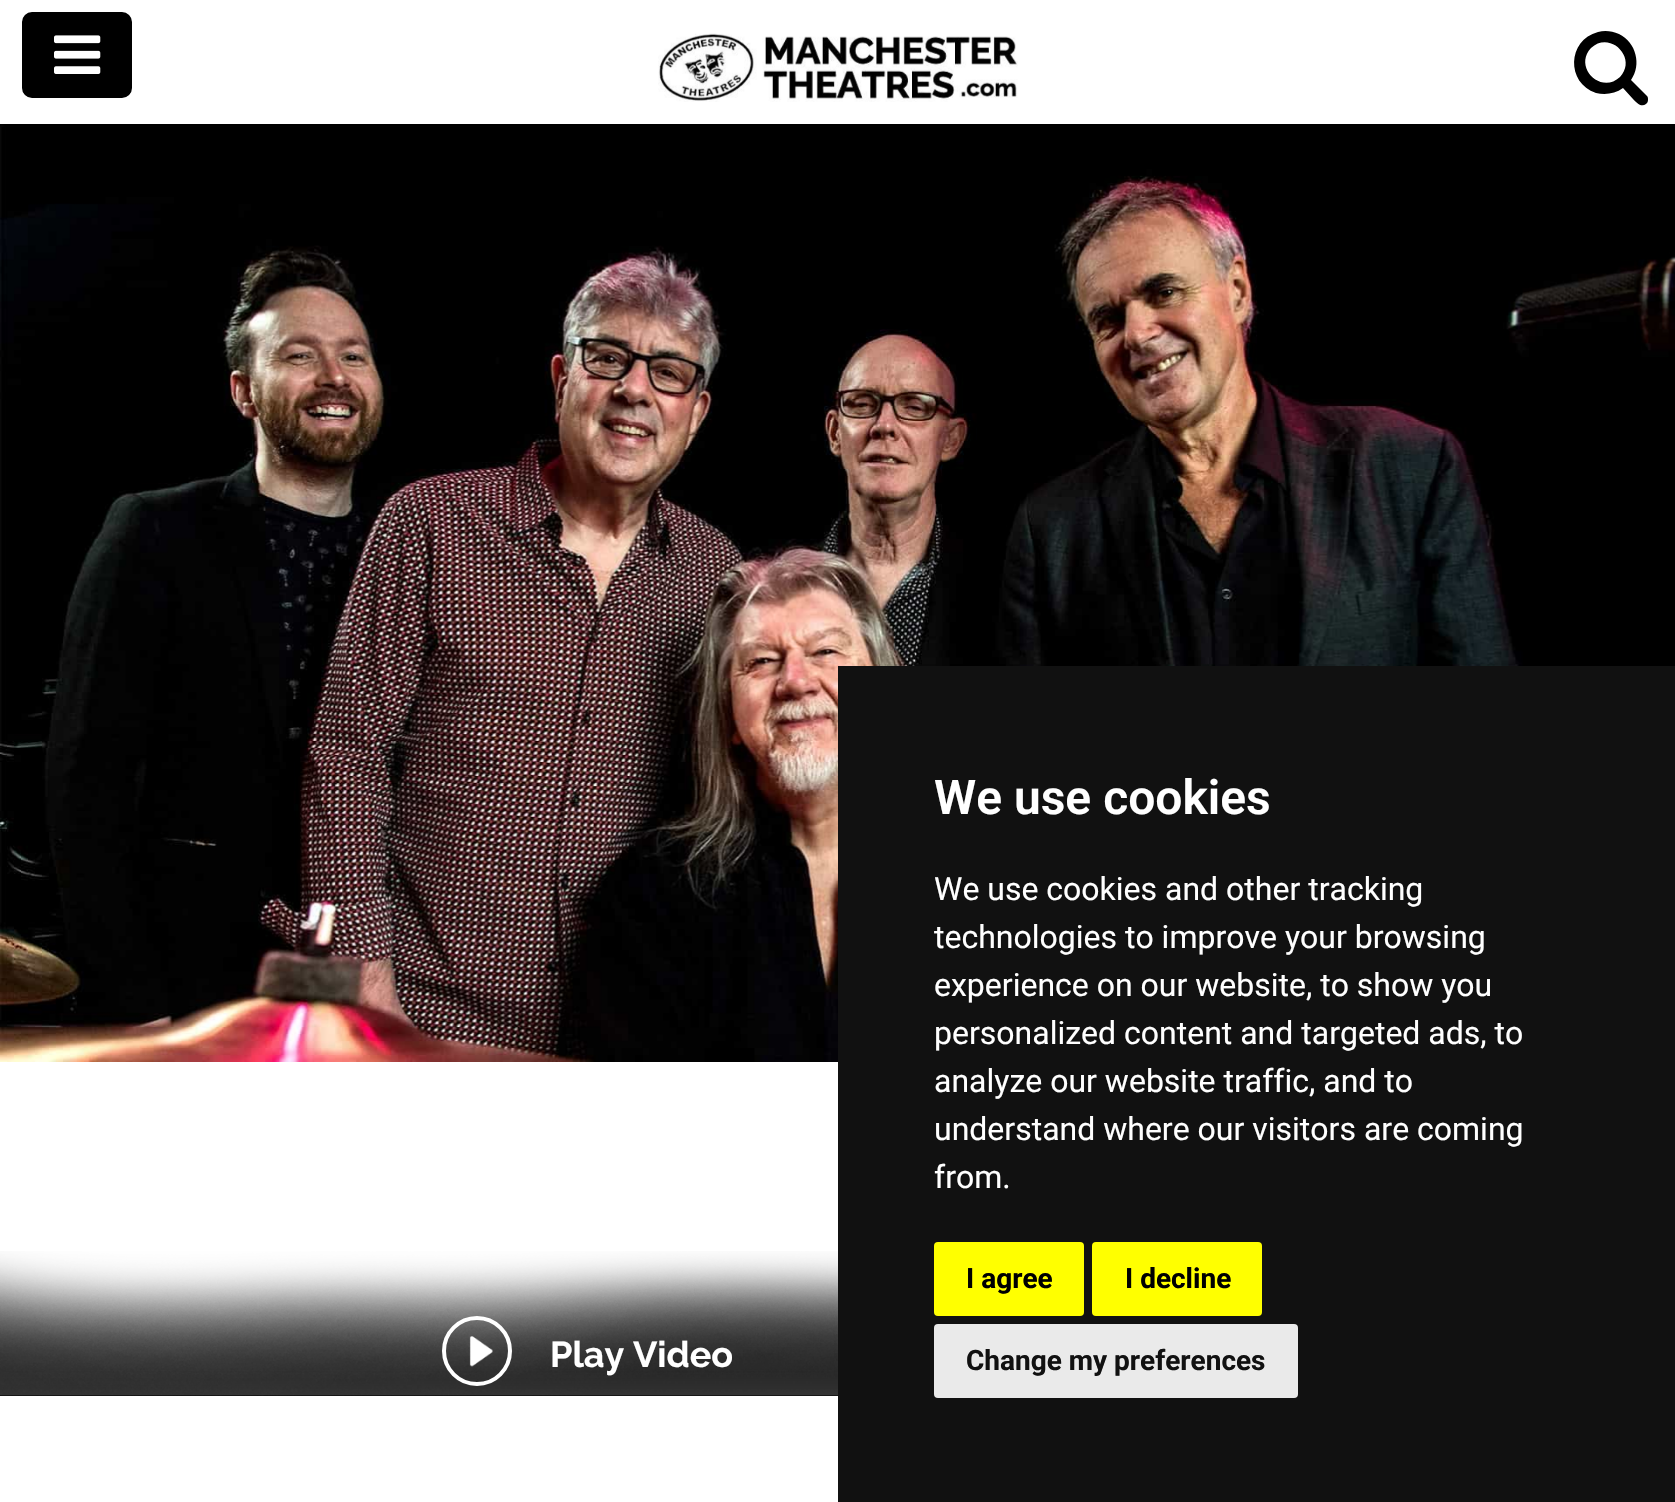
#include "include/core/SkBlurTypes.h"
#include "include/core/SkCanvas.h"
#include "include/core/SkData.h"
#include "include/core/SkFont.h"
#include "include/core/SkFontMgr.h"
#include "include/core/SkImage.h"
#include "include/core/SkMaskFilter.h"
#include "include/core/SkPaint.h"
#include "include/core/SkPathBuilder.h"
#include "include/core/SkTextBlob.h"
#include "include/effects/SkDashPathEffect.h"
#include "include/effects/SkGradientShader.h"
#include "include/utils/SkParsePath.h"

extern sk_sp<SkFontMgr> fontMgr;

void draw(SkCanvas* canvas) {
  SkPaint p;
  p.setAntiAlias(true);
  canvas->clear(SK_ColorWHITE);
  p.setColor(SK_ColorBLACK);
  canvas->drawRoundRect(SkRect::MakeLTRB(23, 13, 131, 97), 9, 9, p);
  p.setStyle(SkPaint::kStroke_Style);
  p.setStrokeWidth(2);
  canvas->drawRoundRect(SkRect::MakeLTRB(23, 13, 131, 97), 9, 9, p);
  canvas->drawImageRect(SkImages::DeferredFromEncodedData(SkData::MakeFromFileName("images/1.png")), SkRect::MakeLTRB(54, 35, 101, 74), SkSamplingOptions());
  canvas->drawImageRect(SkImages::DeferredFromEncodedData(SkData::MakeFromFileName("images/2.png")), SkRect::MakeLTRB(658, 33, 1018, 102), SkSamplingOptions());
  p.setStyle(SkPaint::kFill_Style);
  canvas->drawPath(SkPathBuilder().moveTo(1620, 77).cubicTo(1638, 58, 1610, 30, 1591, 48).cubicTo(1573, 67, 1601, 95, 1620, 77).close().moveTo(1648, 100).cubicTo(1648, 102, 1647, 103, 1646, 104).cubicTo(1641, 108, 1636, 102, 1633, 99).lineTo(1623, 88).cubicTo(1615, 94, 1605, 95, 1596, 93).cubicTo(1566, 83, 1567, 40, 1598, 32).cubicTo(1605, 30, 1612, 31, 1619, 34).cubicTo(1636, 42, 1642, 65, 1631, 80).lineTo(1647, 96).cubicTo(1648, 97, 1648, 98, 1648, 100).close().detach(), p);
  canvas->drawImageRect(SkImages::DeferredFromEncodedData(SkData::MakeFromFileName("images/3.png")), SkRect::MakeLTRB(0, 124, 1675, 1062), SkSamplingOptions());
  canvas->drawImageRect(SkImages::DeferredFromEncodedData(SkData::MakeFromFileName("images/4.png")), SkRect::MakeLTRB(0, 1251, 838, 1396), SkSamplingOptions());
  canvas->drawImageRect(SkImages::DeferredFromEncodedData(SkData::MakeFromFileName("images/5.png")), SkRect::MakeLTRB(469, 1336, 493, 1367), SkSamplingOptions());
  p.setStyle(SkPaint::kStroke_Style);
  p.setStrokeWidth(4);
  p.setColor(SK_ColorWHITE);
  canvas->drawCircle(477, 1351, 33, p);
  p.setStyle(SkPaint::kFill_Style);
  p.setColor(SkColorSetRGB(17, 17, 17));
  canvas->drawRect(SkRect::MakeLTRB(838, 666, 1675, 1502), p);
  p.setColor(SkColorSetRGB(255, 255, 0));
  canvas->drawRoundRect(SkRect::MakeLTRB(934, 1242, 1084, 1316), 4, 4, p);
  canvas->drawRoundRect(SkRect::MakeLTRB(1092, 1242, 1262, 1316), 4, 4, p);
  p.setColor(SkColorSetRGB(234, 234, 234));
  canvas->drawRoundRect(SkRect::MakeLTRB(934, 1324, 1298, 1398), 4, 4, p);
  SkFont font1(fontMgr->matchFamilyStyle("Raleway", SkFontStyle::Bold()), 36);
  font1.setSubpixel(true);
  p.setColor(SK_ColorWHITE);
  canvas->drawString("Play Video", 550, 1367, font1, p);
  SkFont font2(fontMgr->matchFamilyStyle("Roboto", SkFontStyle(600, SkFontStyle::kNormal_Width, SkFontStyle::kUpright_Slant)), 48);
  font2.setSubpixel(true);
  canvas->drawString("We use cookies", 934, 814, font2, p);
  SkFont font3(fontMgr->matchFamilyStyle("Roboto", SkFontStyle::Normal()), 32);
  font3.setSubpixel(true);
  canvas->drawString("We use cookies and other tracking", 934, 900, font3, p);
  canvas->drawString("technologies to improve your browsing", 934, 948, font3, p);
  canvas->drawString("experience on our website, to show you", 934, 996, font3, p);
  canvas->drawString("personalized content and targeted ads, to", 934, 1044, font3, p);
  canvas->drawString("analyze our website traffic, and to", 934, 1092, font3, p);
  canvas->drawString("understand where our visitors are coming", 934, 1140, font3, p);
  canvas->drawString("from.", 934, 1188, font3, p);
  SkFont font4(fontMgr->matchFamilyStyle("Roboto", SkFontStyle::Bold()), 28);
  font4.setSubpixel(true);
  p.setColor(SK_ColorBLACK);
  canvas->drawString("I agree", 966, 1288, font4, p);
  canvas->drawString("I decline", 1125, 1288, font4, p);
  p.setColor(SkColorSetRGB(17, 17, 17));
  canvas->drawString("Change my preferences", 966, 1370, font4, p);
}
